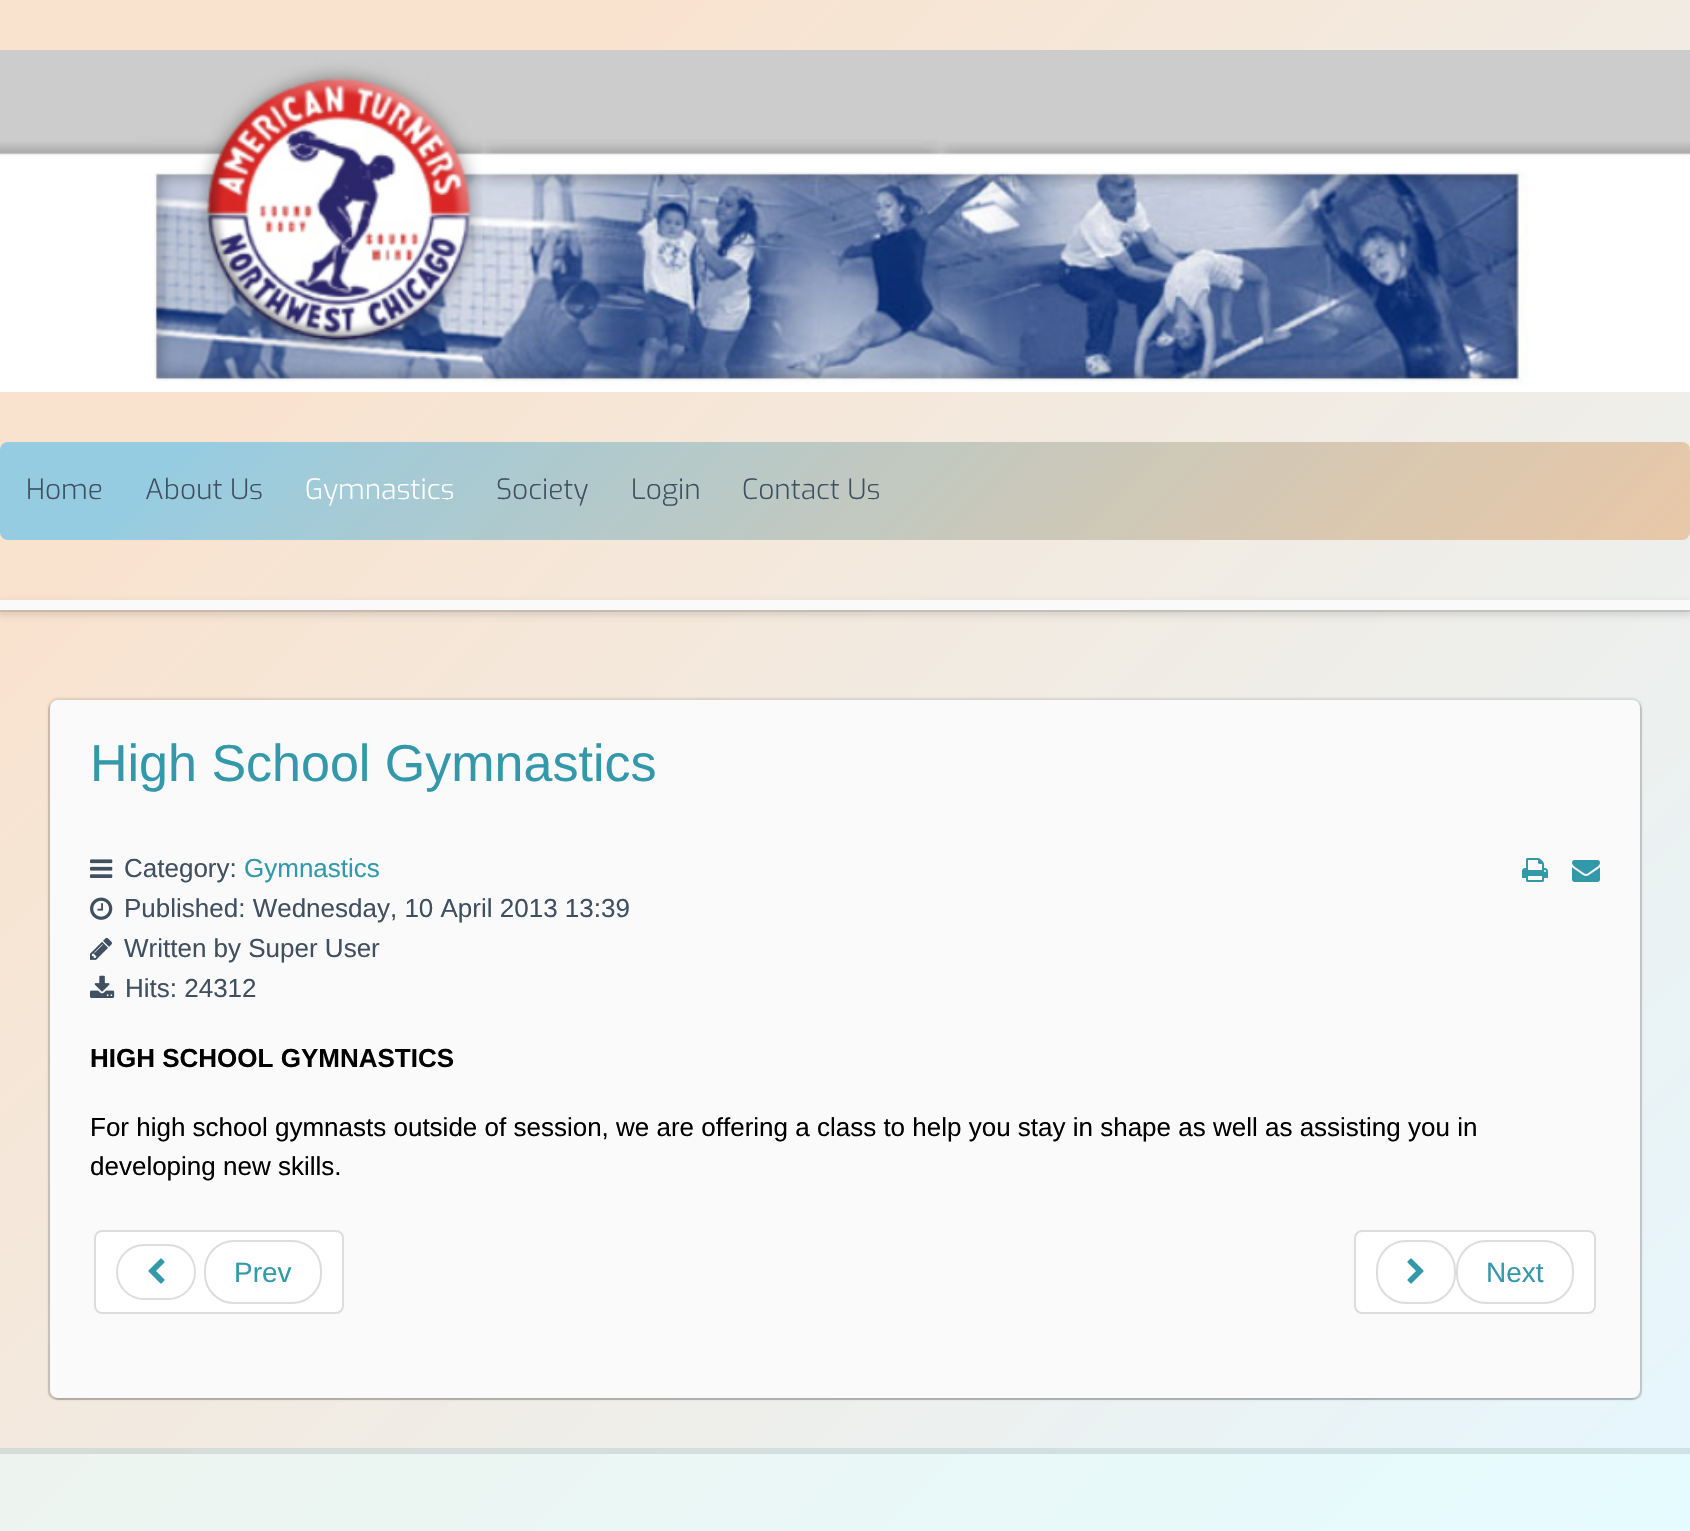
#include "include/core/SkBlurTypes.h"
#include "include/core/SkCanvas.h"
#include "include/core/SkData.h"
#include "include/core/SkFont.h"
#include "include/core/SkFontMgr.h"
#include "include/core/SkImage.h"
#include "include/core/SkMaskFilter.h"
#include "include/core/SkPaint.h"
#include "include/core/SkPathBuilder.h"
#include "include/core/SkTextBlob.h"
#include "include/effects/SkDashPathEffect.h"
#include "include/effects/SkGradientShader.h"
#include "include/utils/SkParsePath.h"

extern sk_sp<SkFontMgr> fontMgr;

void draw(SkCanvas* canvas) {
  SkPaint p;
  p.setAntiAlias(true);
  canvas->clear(SK_ColorWHITE);
  {
    const SkColor colors[] = {SkColorSetRGB(230, 247, 255), SkColorSetRGB(249, 227, 207)};
    const float stops[] = {0, 0.8f};
    const SkPoint ends[] = {{1651, 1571}, {39, -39}};
    p.setShader(SkGradientShader::MakeLinear(ends, colors, stops, 2, SkTileMode::kClamp));
    p.setAlpha(255);
  }
  canvas->drawRect(SkRect::MakeLTRB(0, 0, 1690, 1448), p);
  {
    const SkColor colors[] = {SkColorSetRGB(230, 251, 255), SkColorSetRGB(240, 241, 231)};
    const float stops[] = {0, 0.8f};
    const SkPoint ends[] = {{1651, 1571}, {39, -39}};
    p.setShader(SkGradientShader::MakeLinear(ends, colors, stops, 2, SkTileMode::kClamp));
    p.setAlpha(255);
  }
  canvas->drawRect(SkRect::MakeLTRB(0, 1454, 1690, 1531), p);
  {
    const SkColor colors[] = {SkColorSetRGB(207, 226, 230), SkColorSetRGB(216, 217, 208)};
    const float stops[] = {0, 0.8f};
    const SkPoint ends[] = {{1651, 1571}, {39, -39}};
    p.setShader(SkGradientShader::MakeLinear(ends, colors, stops, 2, SkTileMode::kClamp));
    p.setAlpha(255);
  }
  canvas->drawRect(SkRect::MakeLTRB(0, 1448, 1690, 1454), p);
  canvas->drawImageRect(SkImages::DeferredFromEncodedData(SkData::MakeFromFileName("images/1.png")), SkRect::MakeLTRB(0, 50, 1690, 392), SkSamplingOptions());
  {
    const SkColor colors[] = {SkColorSetARGB(77, 220, 110, 10), SkColorSetARGB(102, 0, 170, 255)};
    const float stops[] = {0, 0.9f};
    const SkPoint ends[] = {{1292, 938}, {398, 44}};
    p.setShader(SkGradientShader::MakeLinear(ends, colors, stops, 2, SkTileMode::kClamp));
    p.setAlpha(255);
  }
  canvas->drawRoundRect(SkRect::MakeLTRB(0, 442, 1690, 540), 8, 8, p);
  p.setShader(nullptr);
  p.setColor(SkColorSetARGB(26, 0, 0, 0));
  p.setMaskFilter(SkMaskFilter::MakeBlur(kNormal_SkBlurStyle, 3));
  canvas->drawRect(SkRect::MakeLTRB(-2, 602, 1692, 616), p);
  p.setMaskFilter(nullptr);
  canvas->drawRect(SkRect::MakeLTRB(0, 610, 1690, 612), p);
  p.setColor(SkColorSetRGB(250, 250, 250));
  canvas->drawRect(SkRect::MakeLTRB(0, 600, 1690, 610), p);
  p.setColor(SkColorSetARGB(26, 0, 0, 0));
  p.setMaskFilter(SkMaskFilter::MakeBlur(kNormal_SkBlurStyle, 1));
  canvas->drawRoundRect(SkRect::MakeLTRB(48, 698, 1642, 1400), 10, 10, p);
  p.setMaskFilter(nullptr);
  canvas->drawPath(SkPathBuilder().moveTo(51, 703).cubicTo(49, 705, 48, 707, 48, 710).lineTo(48, 1392).cubicTo(48, 1396, 52, 1400, 56, 1400).lineTo(1630, 1400).cubicTo(1633, 1400, 1635, 1399, 1637, 1397).cubicTo(1635, 1397, 1634, 1398, 1632, 1398).lineTo(58, 1398).cubicTo(54, 1398, 50, 1394, 50, 1390).lineTo(50, 708).cubicTo(50, 706, 51, 705, 51, 703).close().detach(), p);
  canvas->drawPath(SkPathBuilder().moveTo(53, 1397).cubicTo(55, 1399, 57, 1400, 60, 1400).lineTo(1634, 1400).cubicTo(1638, 1400, 1642, 1396, 1642, 1392).lineTo(1642, 710).cubicTo(1642, 707, 1641, 705, 1639, 703).cubicTo(1639, 705, 1640, 706, 1640, 708).lineTo(1640, 1390).cubicTo(1640, 1394, 1636, 1398, 1632, 1398).lineTo(58, 1398).cubicTo(56, 1398, 55, 1397, 53, 1397).close().detach(), p);
  p.setColor(SkColorSetRGB(250, 250, 250));
  canvas->drawRoundRect(SkRect::MakeLTRB(50, 700, 1640, 1398), 8, 8, p);
  canvas->drawImageRect(SkImages::DeferredFromEncodedData(SkData::MakeFromFileName("images/2.png")), SkRect::MakeLTRB(90, 859, 113, 878), SkSamplingOptions());
  canvas->drawImageRect(SkImages::DeferredFromEncodedData(SkData::MakeFromFileName("images/3.png")), SkRect::MakeLTRB(90, 897, 113, 920), SkSamplingOptions());
  canvas->drawImageRect(SkImages::DeferredFromEncodedData(SkData::MakeFromFileName("images/4.png")), SkRect::MakeLTRB(90, 937, 112, 960), SkSamplingOptions());
  canvas->drawImageRect(SkImages::DeferredFromEncodedData(SkData::MakeFromFileName("images/5.png")), SkRect::MakeLTRB(90, 975, 115, 998), SkSamplingOptions());
  canvas->drawImageRect(SkImages::DeferredFromEncodedData(SkData::MakeFromFileName("images/6.png")), SkRect::MakeLTRB(1522, 858, 1548, 882), SkSamplingOptions());
  canvas->drawImageRect(SkImages::DeferredFromEncodedData(SkData::MakeFromFileName("images/7.png")), SkRect::MakeLTRB(1572, 860, 1600, 882), SkSamplingOptions());
  p.setColor(SK_ColorWHITE);
  canvas->drawRoundRect(SkRect::MakeLTRB(95, 1231, 343, 1313), 7, 7, p);
  p.setStyle(SkPaint::kStroke_Style);
  p.setStrokeWidth(2);
  p.setColor(SkColorSetRGB(221, 221, 221));
  canvas->drawRoundRect(SkRect::MakeLTRB(95, 1231, 343, 1313), 7, 7, p);
  canvas->drawRoundRect(SkRect::MakeLTRB(117, 1245, 195, 1299), 27, 27, p);
  canvas->drawImageRect(SkImages::DeferredFromEncodedData(SkData::MakeFromFileName("images/8.png")), SkRect::MakeLTRB(148, 1258, 165, 1284), SkSamplingOptions());
  canvas->drawRoundRect(SkRect::MakeLTRB(205, 1241, 321, 1303), 29, 29, p);
  p.setStyle(SkPaint::kFill_Style);
  p.setColor(SK_ColorWHITE);
  canvas->drawRoundRect(SkRect::MakeLTRB(1355, 1231, 1595, 1313), 7, 7, p);
  p.setStyle(SkPaint::kStroke_Style);
  p.setColor(SkColorSetRGB(221, 221, 221));
  canvas->drawRoundRect(SkRect::MakeLTRB(1355, 1231, 1595, 1313), 7, 7, p);
  canvas->drawRoundRect(SkRect::MakeLTRB(1377, 1241, 1455, 1303), 29, 29, p);
  canvas->drawImageRect(SkImages::DeferredFromEncodedData(SkData::MakeFromFileName("images/9.png")), SkRect::MakeLTRB(1407, 1258, 1424, 1284), SkSamplingOptions());
  canvas->drawRoundRect(SkRect::MakeLTRB(1457, 1241, 1573, 1303), 29, 29, p);
  SkFont font1(fontMgr->matchFamilyStyle("Exo", SkFontStyle(300, SkFontStyle::kNormal_Width, SkFontStyle::kUpright_Slant)), 28);
  font1.setSubpixel(true);
  p.setStyle(SkPaint::kFill_Style);
  p.setColor(SkColorSetRGB(64, 80, 96));
  canvas->drawString("Home", 26, 499, font1, p);
  canvas->drawString("About Us", 145, 499, font1, p);
  p.setColor(SK_ColorWHITE);
  canvas->drawString("Gymnastics", 305, 499, font1, p);
  p.setColor(SkColorSetRGB(64, 80, 96));
  canvas->drawString("Society", 496, 499, font1, p);
  canvas->drawString("Login", 631, 499, font1, p);
  canvas->drawString("Contact Us", 742, 499, font1, p);
  SkFont font2(fontMgr->matchFamilyStyle("Liberation Sans", SkFontStyle::Normal()), 52);
  font2.setSubpixel(true);
  p.setColor(SkColorSetRGB(51, 153, 170));
  canvas->drawString("High School Gymnastics", 90, 781, font2, p);
  SkFont font3(fontMgr->matchFamilyStyle("Liberation Sans", SkFontStyle::Normal()), 26);
  font3.setSubpixel(true);
  p.setColor(SkColorSetRGB(64, 80, 96));
  canvas->drawString("Category:", 124, 877, font3, p);
  p.setColor(SkColorSetRGB(51, 153, 170));
  canvas->drawString("Gymnastics", 244, 877, font3, p);
  p.setColor(SkColorSetRGB(64, 80, 96));
  canvas->drawString("Published: Wednesday, 10 April 2013 13:39", 124, 917, font3, p);
  canvas->drawString("Written by Super User", 124, 957, font3, p);
  canvas->drawString("Hits: 24312", 125, 997, font3, p);
  SkFont font4(fontMgr->matchFamilyStyle("Liberation Sans", SkFontStyle::Bold()), 26);
  font4.setSubpixel(true);
  p.setColor(SK_ColorBLACK);
  canvas->drawString("HIGH SCHOOL GYMNASTICS", 90, 1067, font4, p);
  canvas->drawString("For high school gymnasts outside of session, we are offering a class to help you stay in shape as well as assisting you in", 90, 1136, font3, p);
  canvas->drawString("developing new skills.", 90, 1175, font3, p);
  SkFont font5(fontMgr->matchFamilyStyle("Liberation Sans", SkFontStyle::Normal()), 28);
  font5.setSubpixel(true);
  p.setColor(SkColorSetRGB(51, 153, 170));
  canvas->drawString("Prev", 234, 1282, font5, p);
  canvas->drawString("Next", 1486, 1282, font5, p);
}
